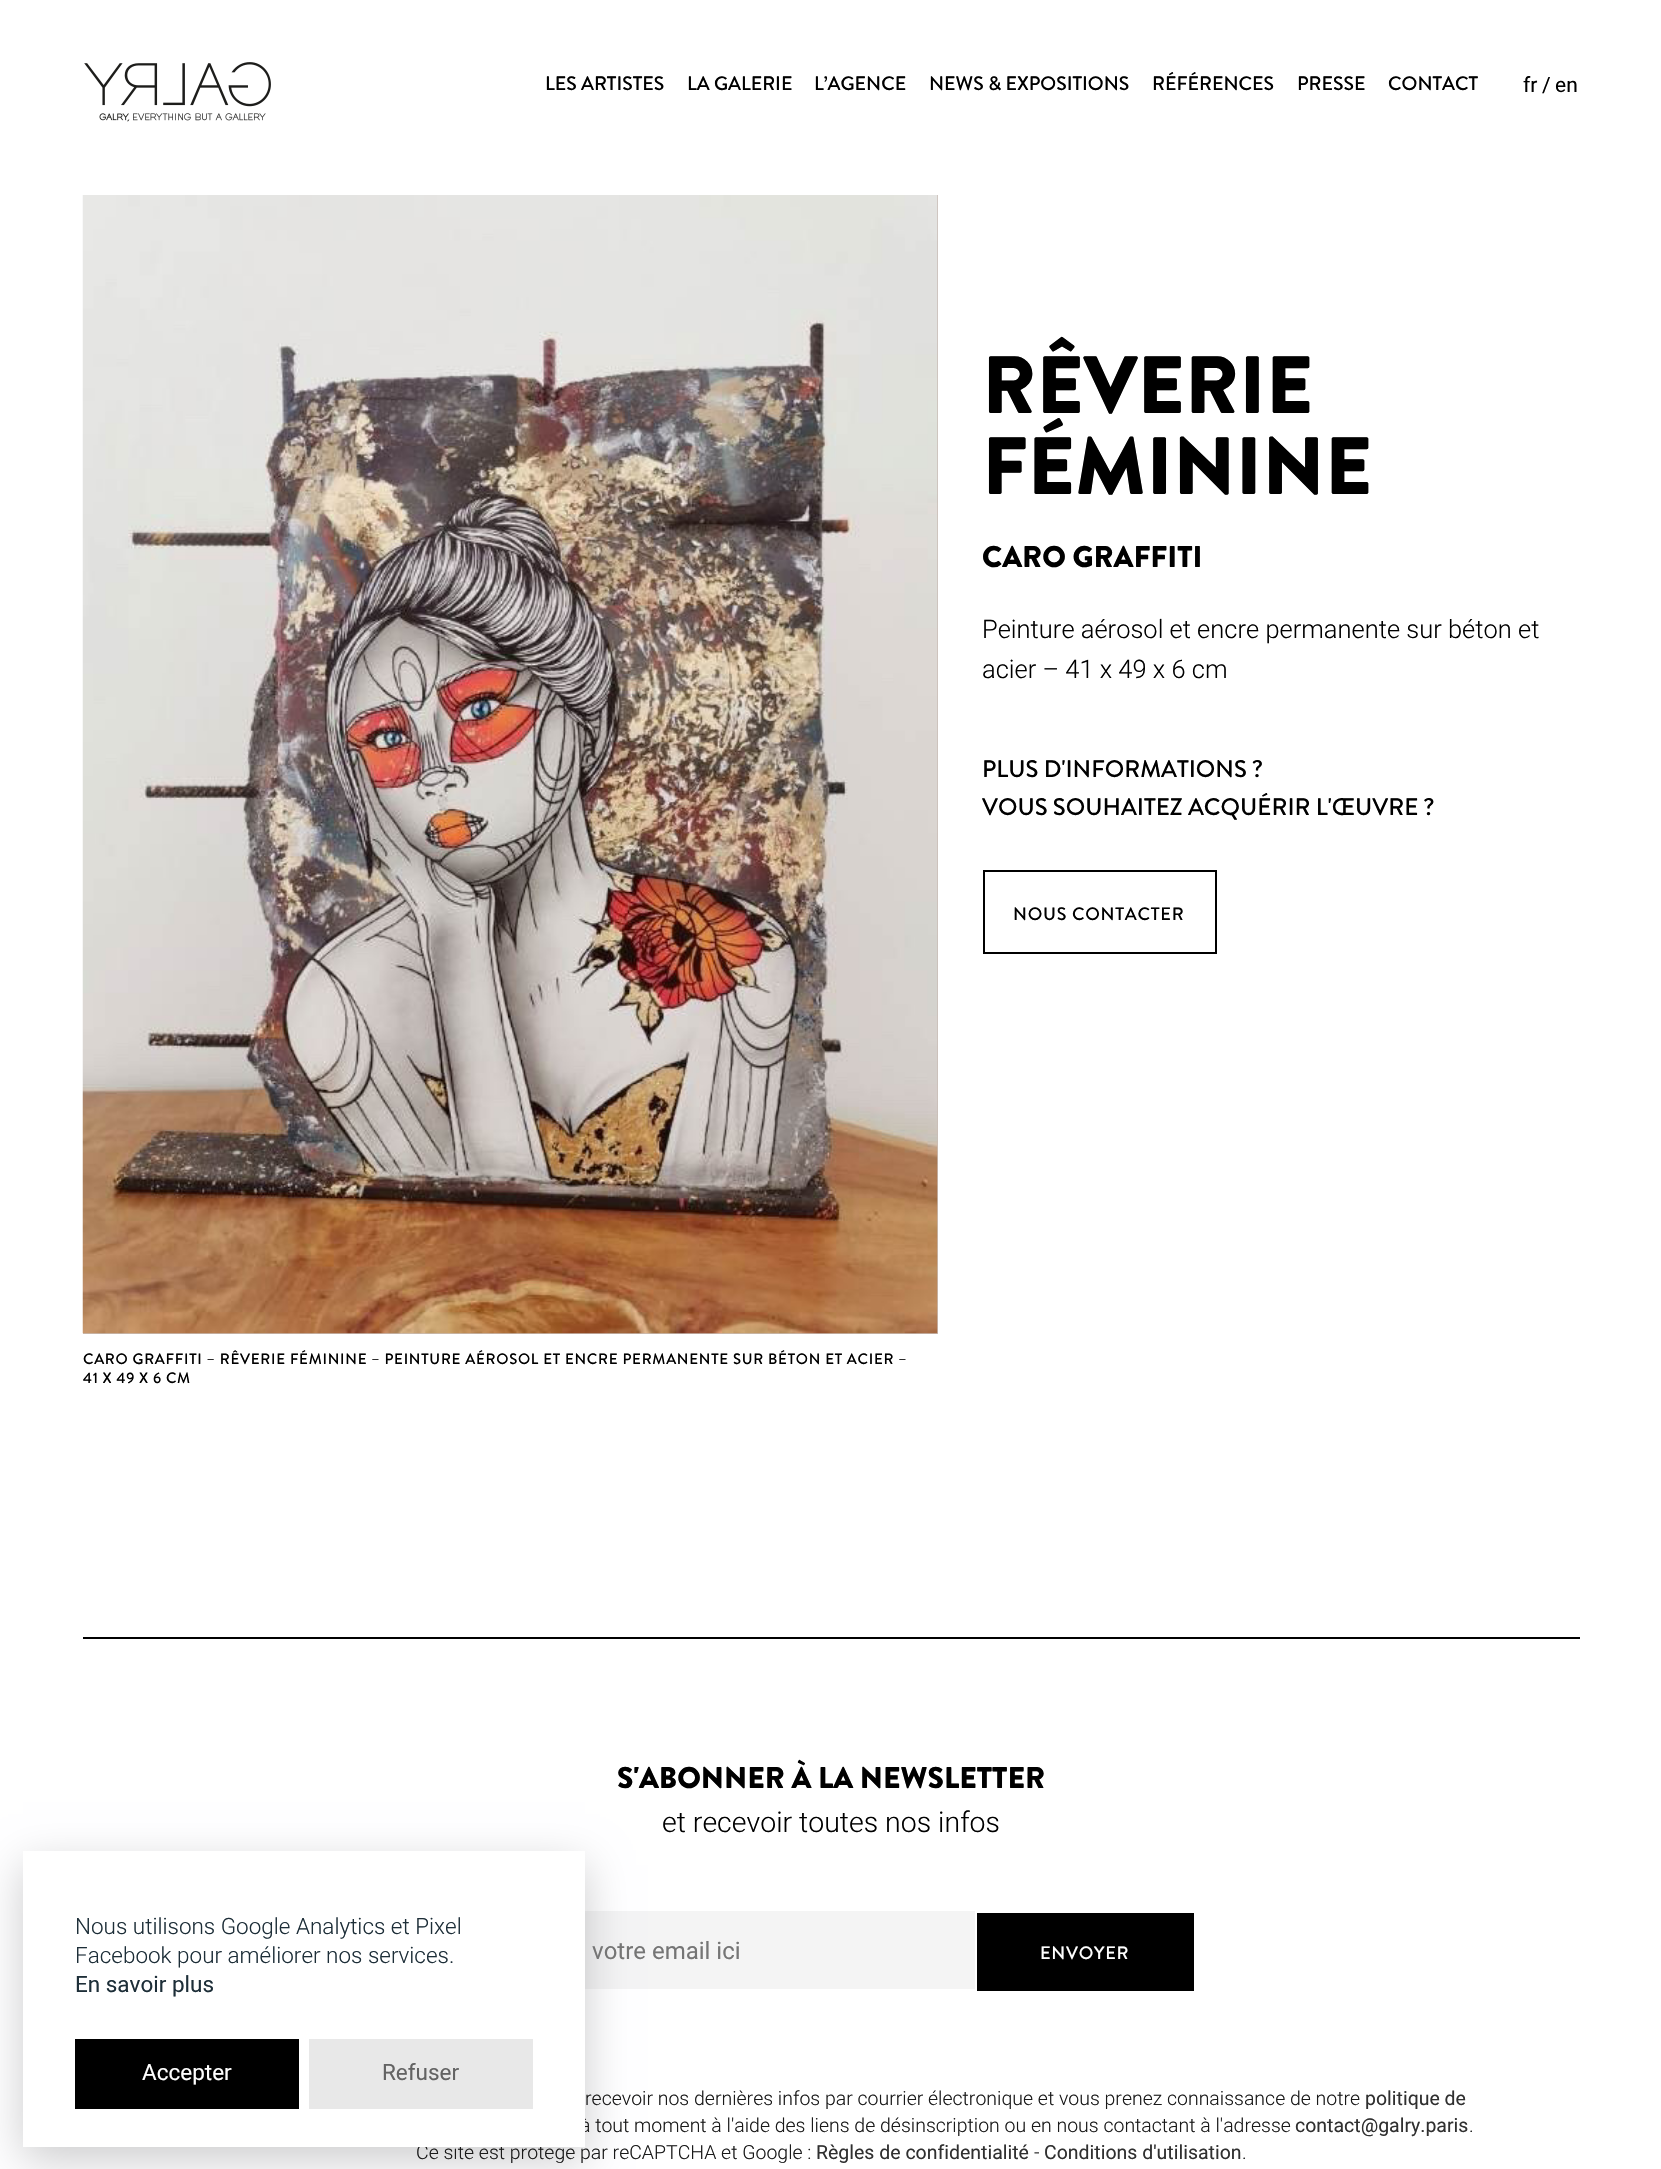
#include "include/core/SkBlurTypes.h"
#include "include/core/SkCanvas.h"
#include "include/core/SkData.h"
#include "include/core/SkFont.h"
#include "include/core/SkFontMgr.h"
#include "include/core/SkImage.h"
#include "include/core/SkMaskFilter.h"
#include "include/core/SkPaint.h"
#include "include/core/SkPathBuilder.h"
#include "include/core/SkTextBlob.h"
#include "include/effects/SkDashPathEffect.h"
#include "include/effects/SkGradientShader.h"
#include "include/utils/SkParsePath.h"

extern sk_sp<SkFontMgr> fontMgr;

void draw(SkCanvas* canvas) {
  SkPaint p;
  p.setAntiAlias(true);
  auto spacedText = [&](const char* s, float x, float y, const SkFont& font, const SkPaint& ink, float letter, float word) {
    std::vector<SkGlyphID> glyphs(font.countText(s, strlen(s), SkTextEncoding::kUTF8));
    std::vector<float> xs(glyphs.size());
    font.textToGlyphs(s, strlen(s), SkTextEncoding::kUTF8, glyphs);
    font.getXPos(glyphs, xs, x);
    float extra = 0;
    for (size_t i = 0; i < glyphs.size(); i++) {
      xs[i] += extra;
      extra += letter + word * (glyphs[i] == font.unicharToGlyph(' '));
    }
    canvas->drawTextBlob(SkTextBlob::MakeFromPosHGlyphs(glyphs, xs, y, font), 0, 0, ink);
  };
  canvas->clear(SK_ColorWHITE);
  canvas->drawImageRect(SkImages::DeferredFromEncodedData(SkData::MakeFromFileName("images/1.png")), SkRect::MakeLTRB(84, 62, 271, 122), SkSamplingOptions());
  p.setStyle(SkPaint::kStroke_Style);
  p.setStrokeWidth(2);
  p.setColor(SK_ColorBLACK);
  canvas->drawRect(SkRect::MakeLTRB(984, 871, 1216, 953), p);
  p.setStyle(SkPaint::kFill_Style);
  p.setColor(SkColorSetRGB(201, 188, 181));
  canvas->drawRect(SkRect::MakeLTRB(83, 195, 938, 1334), p);
  canvas->drawImageRect(SkImages::DeferredFromEncodedData(SkData::MakeFromFileName("images/2.png")), SkRect::MakeLTRB(82, 195, 938, 1334), SkSamplingOptions());
  p.setColor(SkColorSetRGB(244, 244, 244));
  canvas->drawRect(SkRect::MakeLTRB(585, 1911, 975, 1989), p);
  p.setColor(SkColorSetARGB(51, 2, 2, 3));
  p.setMaskFilter(SkMaskFilter::MakeBlur(kNormal_SkBlurStyle, 21));
  canvas->drawRect(SkRect::MakeLTRB(23, 1865, 585, 2160), p);
  p.setMaskFilter(nullptr);
  p.setColor(SK_ColorBLACK);
  canvas->drawRect(SkRect::MakeLTRB(83, 1637, 1580, 1639), p);
  canvas->drawRect(SkRect::MakeLTRB(977, 1913, 1194, 1991), p);
  SkFont font1(fontMgr->matchFamilyStyle("Brandon Grotesque", SkFontStyle(500, SkFontStyle::kNormal_Width, SkFontStyle::kUpright_Slant)), 19.5f);
  font1.setSubpixel(true);
  canvas->drawString("LES ARTISTES", 545, 90, font1, p);
  canvas->drawString("LA GALERIE", 687, 90, font1, p);
  canvas->drawString("L’AGENCE", 814, 90, font1, p);
  canvas->drawString("NEWS & EXPOSITIONS", 929, 90, font1, p);
  canvas->drawString("RÉFÉRENCES", 1152, 90, font1, p);
  canvas->drawString("PRESSE", 1297, 90, font1, p);
  canvas->drawString("CONTACT", 1388, 90, font1, p);
  SkFont font2(fontMgr->matchFamilyStyle("Roboto", SkFontStyle::Normal()), 21);
  font2.setSubpixel(true);
  canvas->drawString("fr", 1523, 92, font2, p);
  canvas->drawString("/", 1542, 92, font2, p);
  canvas->drawString("en", 1555, 92, font2, p);
  SkFont font3(fontMgr->matchFamilyStyle("Brandon Grotesque", SkFontStyle(900, SkFontStyle::kNormal_Width, SkFontStyle::kUpright_Slant)), 81);
  font3.setSubpixel(true);
  canvas->drawString("RÊVERIE", 982, 413, font3, p);
  canvas->drawString("FÉMININE", 982, 494, font3, p);
  SkFont font4(fontMgr->matchFamilyStyle("Brandon Grotesque", SkFontStyle(900, SkFontStyle::kNormal_Width, SkFontStyle::kUpright_Slant)), 30);
  font4.setSubpixel(true);
  canvas->drawString("CARO GRAFFITI", 982, 567, font4, p);
  SkFont font5(fontMgr->matchFamilyStyle("Roboto", SkFontStyle(300, SkFontStyle::kNormal_Width, SkFontStyle::kUpright_Slant)), 25.5f);
  font5.setSubpixel(true);
  canvas->drawString("Peinture aérosol et encre permanente sur béton et", 982, 638, font5, p);
  canvas->drawString("acier – 41 x 49 x 6 cm", 982, 678, font5, p);
  SkFont font6(fontMgr->matchFamilyStyle("Brandon Grotesque", SkFontStyle(500, SkFontStyle::kNormal_Width, SkFontStyle::kUpright_Slant)), 24);
  font6.setSubpixel(true);
  canvas->drawString("PLUS D'INFORMATIONS ?", 982, 777, font6, p);
  canvas->drawString("VOUS SOUHAITEZ ACQUÉRIR L'ŒUVRE ?", 982, 815, font6, p);
  SkFont font7(fontMgr->matchFamilyStyle("Brandon Grotesque", SkFontStyle(500, SkFontStyle::kNormal_Width, SkFontStyle::kUpright_Slant)), 18);
  font7.setSubpixel(true);
  spacedText("NOUS CONTACTER", 1013, 920, font7, p, 0.75f, 0);
  SkFont font8(fontMgr->matchFamilyStyle("Brandon Grotesque", SkFontStyle(500, SkFontStyle::kNormal_Width, SkFontStyle::kUpright_Slant)), 15);
  font8.setSubpixel(true);
  spacedText("CARO GRAFFITI – RÊVERIE FÉMININE – PEINTURE AÉROSOL ET ENCRE PERMANENTE SUR BÉTON ET ACIER –", 83, 1364, font8, p, 0.75f, 0);
  spacedText("41 X 49 X 6 CM", 83, 1383, font8, p, 0.75f, 0);
  canvas->drawString("S'ABONNER À LA NEWSLETTER", 617, 1788, font4, p);
  SkFont font9(fontMgr->matchFamilyStyle("Roboto", SkFontStyle(300, SkFontStyle::kNormal_Width, SkFontStyle::kUpright_Slant)), 28.5f);
  font9.setSubpixel(true);
  canvas->drawString("et recevoir toutes nos infos", 662, 1832, font9, p);
  SkFont font10(fontMgr->matchFamilyStyle("Roboto", SkFontStyle::Normal()), 24);
  font10.setSubpixel(true);
  p.setColor(SkColorSetRGB(117, 117, 117));
  canvas->drawString("votre email ici", 592, 1959, font10, p);
  p.setColor(SK_ColorWHITE);
  spacedText("ENVOYER", 1040, 1959, font7, p, 0.75f, 0);
  SkFont font11(fontMgr->matchFamilyStyle("Roboto", SkFontStyle(300, SkFontStyle::kNormal_Width, SkFontStyle::kUpright_Slant)), 19.5f);
  font11.setSubpixel(true);
  p.setColor(SkColorSetRGB(26, 26, 26));
  canvas->drawString("recevoir nos dernières infos par courrier électronique et vous prenez connaissance de notre", 585, 2105, font11, p);
  SkFont font12(fontMgr->matchFamilyStyle("Roboto", SkFontStyle::Normal()), 19.5f);
  font12.setSubpixel(true);
  p.setColor(SkColorSetRGB(48, 48, 48));
  canvas->drawString("politique de", 1365, 2105, font12, p);
  p.setColor(SkColorSetRGB(26, 26, 26));
  canvas->drawString("à tout moment à l'aide des liens de désinscription ou en nous contactant à l'adresse", 580, 2132, font11, p);
  p.setColor(SkColorSetRGB(48, 48, 48));
  canvas->drawString("contact@galry.paris", 1295, 2132, font12, p);
  p.setColor(SkColorSetRGB(26, 26, 26));
  canvas->drawString(".", 1469, 2132, font11, p);
  canvas->drawString("Ce site est protégé par reCAPTCHA et Google :", 416, 2159, font11, p);
  p.setColor(SK_ColorWHITE);
  canvas->drawRect(SkRect::MakeLTRB(23, 1851, 585, 2147), p);
  p.setColor(SkColorSetRGB(232, 232, 232));
  canvas->drawRect(SkRect::MakeLTRB(309, 2039, 533, 2109), p);
  SkFont font13(fontMgr->matchFamilyStyle("Roboto", SkFontStyle::Normal()), 22.5f);
  font13.setSubpixel(true);
  p.setColor(SkColorSetRGB(99, 99, 99));
  canvas->drawString("Refuser", 382, 2080, font13, p);
  p.setColor(SK_ColorBLACK);
  canvas->drawRect(SkRect::MakeLTRB(75, 2039, 299, 2109), p);
  p.setColor(SK_ColorWHITE);
  canvas->drawString("Accepter", 142, 2080, font13, p);
  p.setColor(SkColorSetRGB(29, 46, 56));
  canvas->drawString("En savoir plus", 75, 1992, font13, p);
  SkFont font14(fontMgr->matchFamilyStyle("Roboto", SkFontStyle(300, SkFontStyle::kNormal_Width, SkFontStyle::kUpright_Slant)), 22.5f);
  font14.setSubpixel(true);
  canvas->drawString("Facebook pour améliorer nos services.", 75, 1963, font14, p);
  canvas->drawString("Nous utilisons Google Analytics et Pixel", 75, 1934, font14, p);
  p.setColor(SkColorSetRGB(48, 48, 48));
  canvas->drawString("Règles de confidentialité", 816, 2159, font12, p);
  p.setColor(SkColorSetRGB(26, 26, 26));
  canvas->drawString("-", 1034, 2159, font11, p);
  p.setColor(SkColorSetRGB(48, 48, 48));
  canvas->drawString("Conditions d'utilisation", 1044, 2159, font12, p);
  p.setColor(SkColorSetRGB(26, 26, 26));
  canvas->drawString(".", 1242, 2159, font11, p);
}
